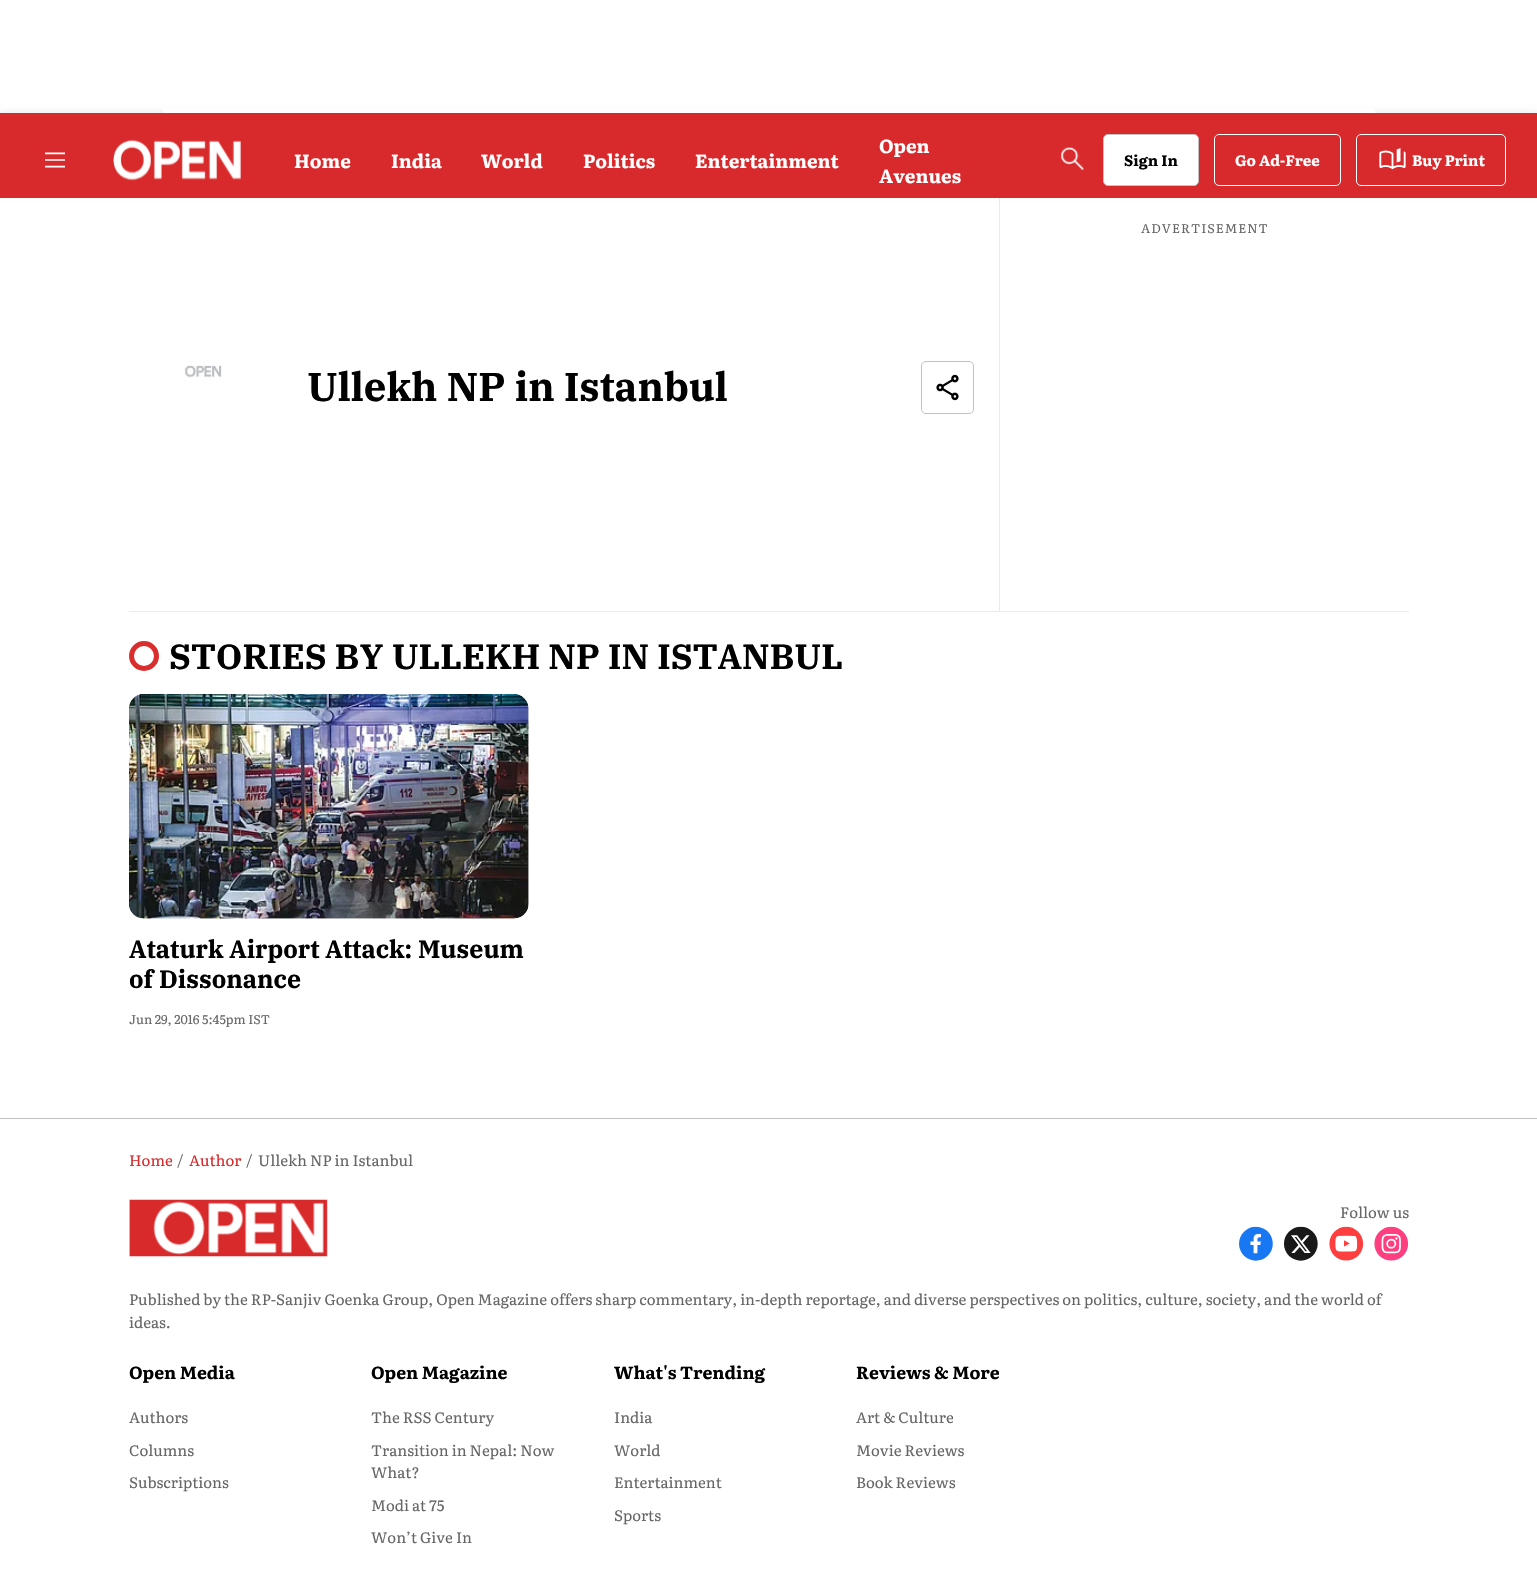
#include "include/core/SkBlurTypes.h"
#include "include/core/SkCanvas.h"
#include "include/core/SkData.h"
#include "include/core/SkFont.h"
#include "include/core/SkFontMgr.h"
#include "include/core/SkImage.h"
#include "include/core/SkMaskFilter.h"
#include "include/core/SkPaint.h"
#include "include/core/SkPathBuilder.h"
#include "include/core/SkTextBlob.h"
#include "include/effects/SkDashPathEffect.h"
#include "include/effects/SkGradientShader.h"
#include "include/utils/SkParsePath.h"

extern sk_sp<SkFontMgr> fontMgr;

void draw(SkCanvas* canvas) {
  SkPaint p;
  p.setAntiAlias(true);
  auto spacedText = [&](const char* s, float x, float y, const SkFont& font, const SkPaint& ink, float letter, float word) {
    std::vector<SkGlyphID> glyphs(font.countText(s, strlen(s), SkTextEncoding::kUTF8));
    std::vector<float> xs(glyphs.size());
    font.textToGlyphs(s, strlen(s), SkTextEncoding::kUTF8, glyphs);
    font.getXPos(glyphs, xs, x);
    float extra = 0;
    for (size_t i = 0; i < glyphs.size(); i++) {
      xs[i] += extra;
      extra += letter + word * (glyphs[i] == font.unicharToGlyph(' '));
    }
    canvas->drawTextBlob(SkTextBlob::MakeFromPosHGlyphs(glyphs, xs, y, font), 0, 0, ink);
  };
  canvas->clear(SK_ColorWHITE);
  p.setColor(SkColorSetRGB(235, 235, 235));
  canvas->drawRect(SkRect::MakeLTRB(999, 198, 1000, 611), p);
  p.setColor(SkColorSetARGB(15, 0, 0, 0));
  p.setMaskFilter(SkMaskFilter::MakeBlur(kNormal_SkBlurStyle, 2.5f));
  canvas->drawRect(SkRect::MakeLTRB(0, 111, 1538, 196), p);
  p.setMaskFilter(nullptr);
  p.setColor(SK_ColorWHITE);
  canvas->drawRect(SkRect::MakeLTRB(163, 109, 1375, 113), p);
  p.setColor(SkColorSetRGB(216, 42, 44));
  canvas->drawRect(SkRect::MakeLTRB(0, 113, 1537, 198), p);
  canvas->drawImageRect(SkImages::DeferredFromEncodedData(SkData::MakeFromFileName("images/1.png")), SkRect::MakeLTRB(45, 152, 65, 168), SkSamplingOptions());
  canvas->drawImageRect(SkImages::DeferredFromEncodedData(SkData::MakeFromFileName("images/2.png")), SkRect::MakeLTRB(113, 139, 241, 181), SkSamplingOptions());
  canvas->drawImageRect(SkImages::DeferredFromEncodedData(SkData::MakeFromFileName("images/3.png")), SkRect::MakeLTRB(1061, 147, 1084, 170), SkSamplingOptions());
  p.setColor(SK_ColorWHITE);
  canvas->drawRoundRect(SkRect::MakeLTRB(1103.5f, 134.5f, 1198.5f, 185.5f), 4.5f, 4.5f, p);
  p.setStyle(SkPaint::kStroke_Style);
  p.setStrokeWidth(1);
  p.setColor(SkColorSetRGB(194, 194, 194));
  canvas->drawRoundRect(SkRect::MakeLTRB(1103.5f, 134.5f, 1198.5f, 185.5f), 4.5f, 4.5f, p);
  p.setColor(SK_ColorWHITE);
  canvas->drawRoundRect(SkRect::MakeLTRB(1214.5f, 134.5f, 1340.5f, 185.5f), 4.5f, 4.5f, p);
  canvas->drawRoundRect(SkRect::MakeLTRB(1356.5f, 134.5f, 1505.5f, 185.5f), 4.5f, 4.5f, p);
  canvas->drawImageRect(SkImages::DeferredFromEncodedData(SkData::MakeFromFileName("images/4.png")), SkRect::MakeLTRB(1379, 148, 1406, 170), SkSamplingOptions());
  p.setStyle(SkPaint::kFill_Style);
  p.setColor(SkColorSetRGB(235, 235, 235));
  canvas->drawRect(SkRect::MakeLTRB(129, 611, 1409, 612), p);
  canvas->drawImageRect(SkImages::DeferredFromEncodedData(SkData::MakeFromFileName("images/5.png")), SkRect::MakeLTRB(184, 365, 222, 378), SkSamplingOptions());
  p.setStyle(SkPaint::kStroke_Style);
  p.setColor(SkColorSetRGB(194, 194, 194));
  canvas->drawRoundRect(SkRect::MakeLTRB(921.5f, 361.5f, 973.5f, 413.5f), 4.5f, 4.5f, p);
  canvas->drawImageRect(SkImages::DeferredFromEncodedData(SkData::MakeFromFileName("images/6.png")), SkRect::MakeLTRB(936, 374, 959, 401), SkSamplingOptions());
  p.setStrokeWidth(5);
  p.setColor(SkColorSetRGB(218, 45, 45));
  canvas->drawCircle(144, 656, 12.5f, p);
  canvas->drawImageRect(SkImages::DeferredFromEncodedData(SkData::MakeFromFileName("images/7.png")), SkRect::MakeLTRB(129, 694, 529, 919), SkSamplingOptions());
  p.setStyle(SkPaint::kFill_Style);
  p.setColor(SkColorSetRGB(194, 194, 194));
  canvas->drawRect(SkRect::MakeLTRB(0, 1118, 1537, 1119), p);
  canvas->drawImageRect(SkImages::DeferredFromEncodedData(SkData::MakeFromFileName("images/8.png")), SkRect::MakeLTRB(129, 1199, 328, 1257), SkSamplingOptions());
  canvas->drawImageRect(SkImages::DeferredFromEncodedData(SkData::MakeFromFileName("images/9.png")), SkRect::MakeLTRB(1239, 1226, 1273, 1261), SkSamplingOptions());
  canvas->drawImageRect(SkImages::DeferredFromEncodedData(SkData::MakeFromFileName("images/10.png")), SkRect::MakeLTRB(1284, 1226, 1318, 1261), SkSamplingOptions());
  canvas->drawImageRect(SkImages::DeferredFromEncodedData(SkData::MakeFromFileName("images/11.png")), SkRect::MakeLTRB(1329, 1226, 1364, 1261), SkSamplingOptions());
  canvas->drawImageRect(SkImages::DeferredFromEncodedData(SkData::MakeFromFileName("images/12.png")), SkRect::MakeLTRB(1374, 1226, 1409, 1261), SkSamplingOptions());
  SkFont font1(fontMgr->matchFamilyStyle("Literata", SkFontStyle::Bold()), 18.75f);
  font1.setSubpixel(true);
  p.setColor(SK_ColorWHITE);
  canvas->drawString("Home", 294, 168, font1, p);
  canvas->drawString("India", 391, 168, font1, p);
  canvas->drawString("World", 481, 168, font1, p);
  canvas->drawString("Politics", 583, 168, font1, p);
  canvas->drawString("Entertainment", 695, 168, font1, p);
  canvas->drawString("Open", 879, 153, font1, p);
  canvas->drawString("Avenues", 879, 183, font1, p);
  SkFont font2(fontMgr->matchFamilyStyle("Literata", SkFontStyle::Bold()), 15);
  font2.setSubpixel(true);
  p.setColor(SK_ColorBLACK);
  canvas->drawString("Sign In", 1124, 166, font2, p);
  p.setColor(SK_ColorWHITE);
  canvas->drawString("Go Ad-Free", 1235, 166, font2, p);
  canvas->drawString("Buy Print", 1412, 166, font2, p);
  SkFont font3(fontMgr->matchFamilyStyle("Literata", SkFontStyle::Normal()), 12.5f);
  font3.setSubpixel(true);
  p.setColor(SkColorSetRGB(102, 102, 102));
  spacedText("ADVERTISEMENT", 1141, 233, font3, p, 1, 0);
  SkFont font4(fontMgr->matchFamilyStyle("IBM Plex Serif", SkFontStyle::Bold()), 40);
  font4.setSubpixel(true);
  p.setColor(SK_ColorBLACK);
  canvas->drawString("Ullekh NP in Istanbul", 307, 401, font4, p);
  SkFont font5(fontMgr->matchFamilyStyle("IBM Plex Serif", SkFontStyle::Bold()), 35);
  font5.setSubpixel(true);
  canvas->drawString("STORIES BY ULLEKH NP IN ISTANBUL", 169, 669, font5, p);
  SkFont font6(fontMgr->matchFamilyStyle("IBM Plex Serif", SkFontStyle::Bold()), 25);
  font6.setSubpixel(true);
  canvas->drawString("Ataturk Airport Attack: Museum", 129, 958, font6, p);
  canvas->drawString("of Dissonance", 129, 988, font6, p);
  p.setColor(SkColorSetRGB(102, 102, 102));
  canvas->drawString("Jun 29, 2016 5:45pm IST", 129, 1024, font3, p);
  SkFont font7(fontMgr->matchFamilyStyle("Literata", SkFontStyle::Normal()), 15);
  font7.setSubpixel(true);
  p.setColor(SkColorSetRGB(216, 42, 44));
  canvas->drawString("Home", 129, 1166, font7, p);
  p.setColor(SkColorSetRGB(102, 102, 102));
  canvas->drawString("/", 177, 1166, font7, p);
  p.setColor(SkColorSetRGB(216, 42, 44));
  canvas->drawString("Author", 189, 1166, font7, p);
  p.setColor(SkColorSetRGB(102, 102, 102));
  canvas->drawString("/", 246, 1166, font7, p);
  canvas->drawString("Ullekh NP in Istanbul", 258, 1166, font7, p);
  canvas->drawString("Follow us", 1340, 1218, font7, p);
  canvas->drawString("Published by the RP-Sanjiv Goenka Group, Open Magazine offers sharp commentary, in-depth reportage, and diverse perspectives on politics, culture, society, and the world of", 129, 1305, font7, p);
  canvas->drawString("ideas.", 129, 1328, font7, p);
  SkFont font8(fontMgr->matchFamilyStyle("Literata", SkFontStyle::Bold()), 17.5f);
  font8.setSubpixel(true);
  p.setColor(SK_ColorBLACK);
  canvas->drawString("Open Media", 129, 1379, font8, p);
  p.setColor(SkColorSetRGB(102, 102, 102));
  canvas->drawString("Authors", 129, 1423, font7, p);
  canvas->drawString("Columns", 129, 1456, font7, p);
  canvas->drawString("Subscriptions", 129, 1488, font7, p);
  p.setColor(SK_ColorBLACK);
  canvas->drawString("Open Magazine", 371, 1379, font8, p);
  p.setColor(SkColorSetRGB(102, 102, 102));
  canvas->drawString("The RSS Century", 371, 1423, font7, p);
  canvas->drawString("Transition in Nepal: Now", 371, 1456, font7, p);
  canvas->drawString("What?", 371, 1478, font7, p);
  canvas->drawString("Modi at 75", 371, 1511, font7, p);
  canvas->drawString("Won’t Give In", 371, 1543, font7, p);
  p.setColor(SK_ColorBLACK);
  canvas->drawString("What's Trending", 614, 1379, font8, p);
  p.setColor(SkColorSetRGB(102, 102, 102));
  canvas->drawString("India", 614, 1423, font7, p);
  canvas->drawString("World", 614, 1456, font7, p);
  canvas->drawString("Entertainment", 614, 1488, font7, p);
  canvas->drawString("Sports", 614, 1521, font7, p);
  p.setColor(SK_ColorBLACK);
  canvas->drawString("Reviews & More", 856, 1379, font8, p);
  p.setColor(SkColorSetRGB(102, 102, 102));
  canvas->drawString("Art & Culture", 856, 1423, font7, p);
  canvas->drawString("Movie Reviews", 856, 1456, font7, p);
  canvas->drawString("Book Reviews", 856, 1488, font7, p);
}
